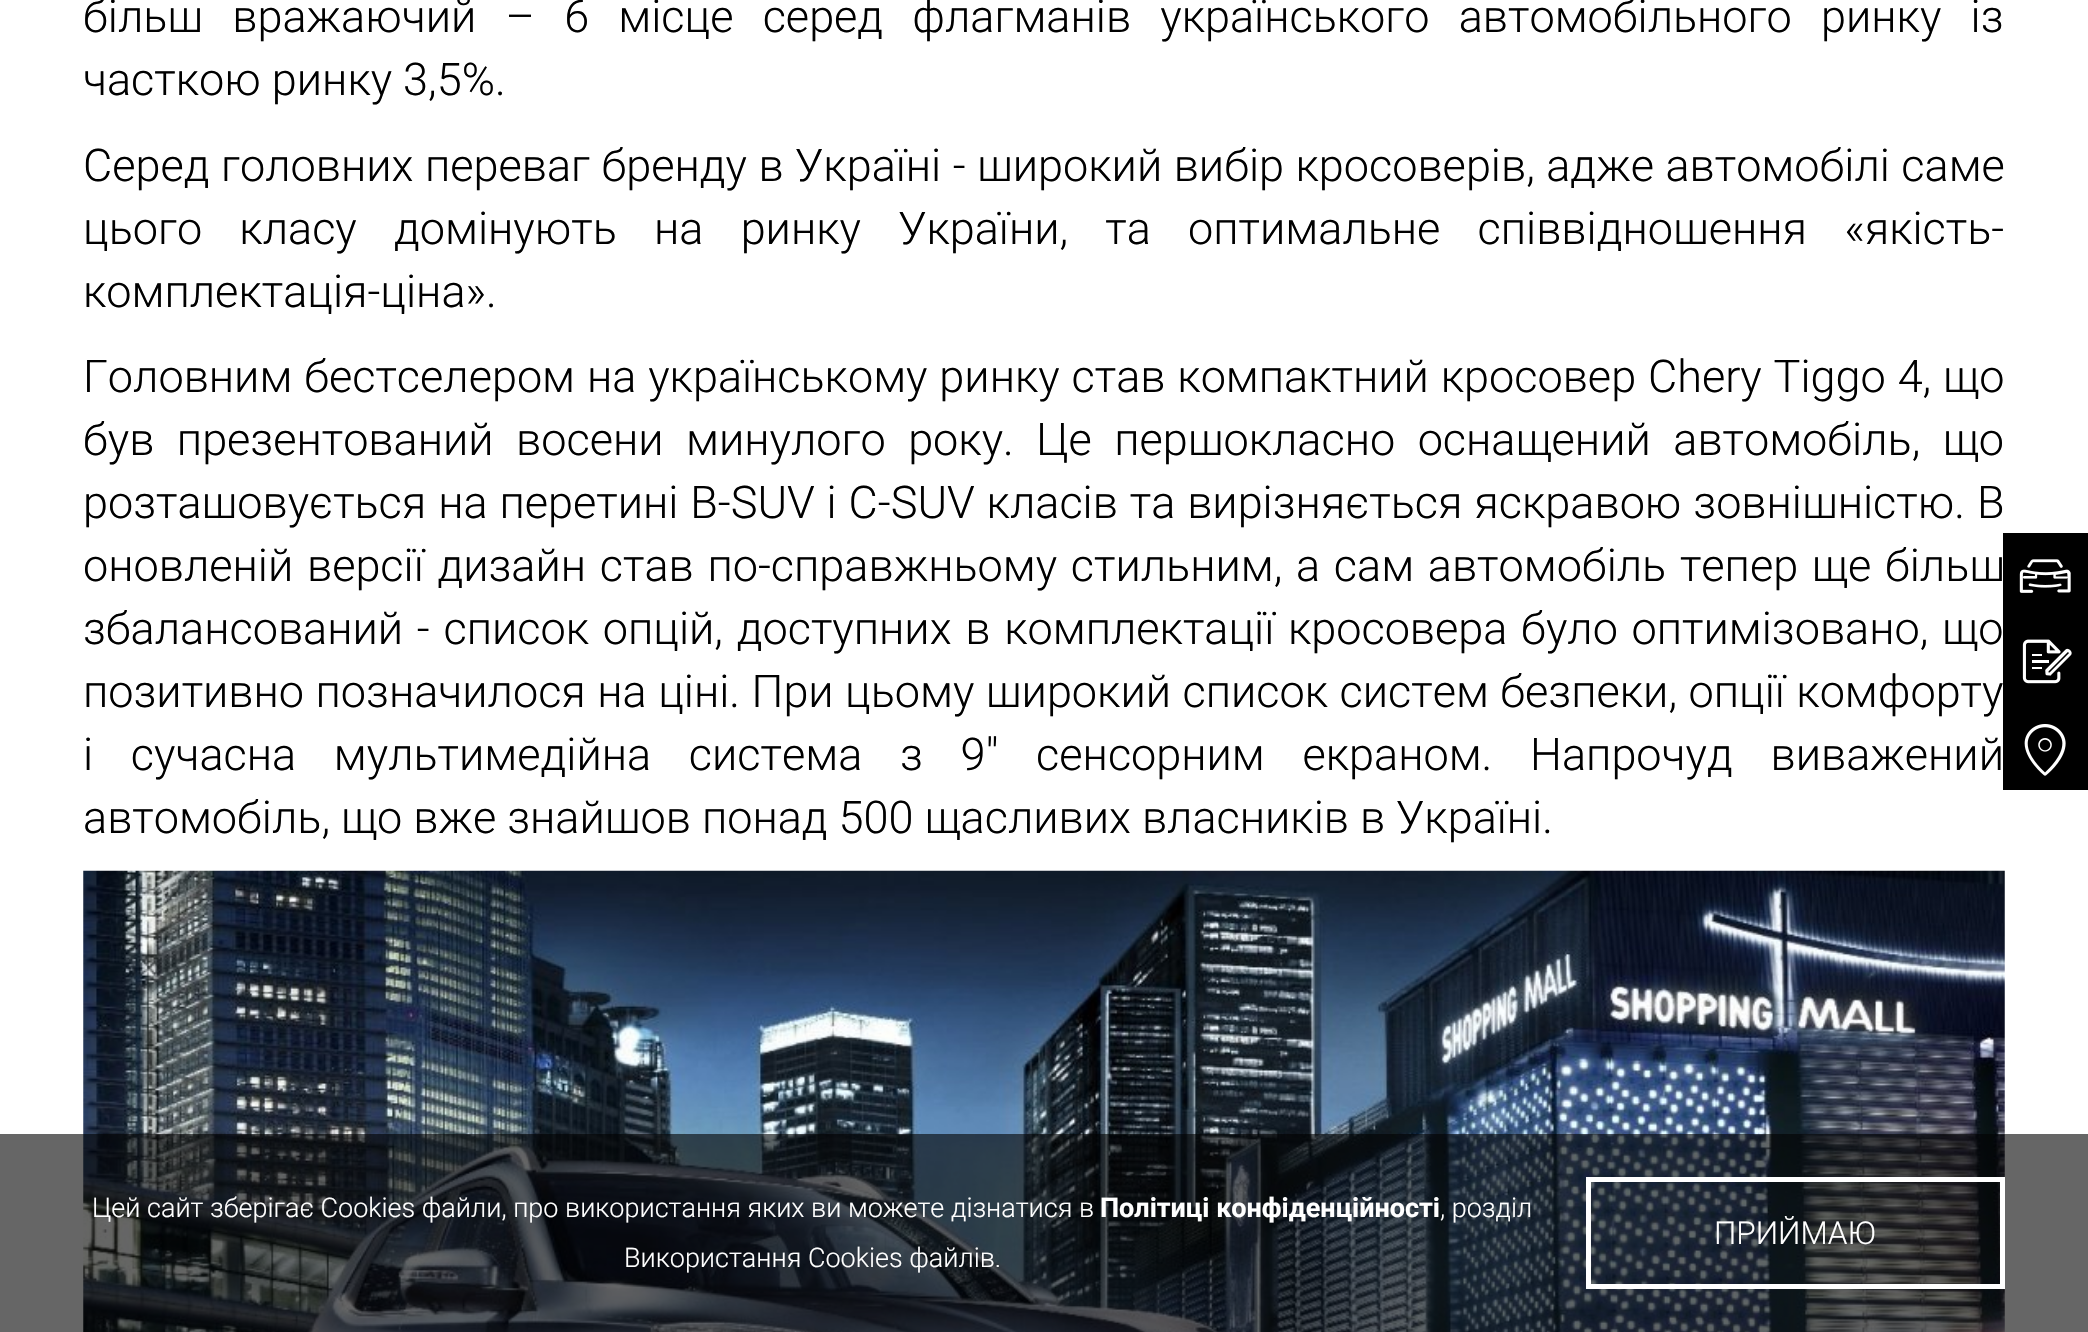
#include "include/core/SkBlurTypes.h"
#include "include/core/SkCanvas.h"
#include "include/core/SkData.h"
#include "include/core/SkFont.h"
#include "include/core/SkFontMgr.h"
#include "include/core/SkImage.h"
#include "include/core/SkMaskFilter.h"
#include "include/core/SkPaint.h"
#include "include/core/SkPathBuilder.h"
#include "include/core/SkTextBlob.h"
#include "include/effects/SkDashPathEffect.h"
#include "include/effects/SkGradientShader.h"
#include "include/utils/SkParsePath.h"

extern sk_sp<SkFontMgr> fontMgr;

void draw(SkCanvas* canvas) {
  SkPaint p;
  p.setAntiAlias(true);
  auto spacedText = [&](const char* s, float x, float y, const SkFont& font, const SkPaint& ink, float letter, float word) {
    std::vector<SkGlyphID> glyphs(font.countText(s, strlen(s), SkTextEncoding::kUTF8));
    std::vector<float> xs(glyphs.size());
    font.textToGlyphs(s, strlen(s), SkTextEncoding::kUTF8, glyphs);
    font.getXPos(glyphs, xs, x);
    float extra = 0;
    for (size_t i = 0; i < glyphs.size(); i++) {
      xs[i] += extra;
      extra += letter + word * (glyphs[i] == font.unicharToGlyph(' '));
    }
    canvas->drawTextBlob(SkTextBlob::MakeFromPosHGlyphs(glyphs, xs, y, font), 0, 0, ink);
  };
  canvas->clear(SK_ColorWHITE);
  canvas->drawImageRect(SkImages::DeferredFromEncodedData(SkData::MakeFromFileName("images/1.png")), SkRect::MakeLTRB(83, 870, 2005, 1332), SkSamplingOptions());
  p.setColor(SK_ColorBLACK);
  canvas->drawRect(SkRect::MakeLTRB(2003, 533, 2088, 790), p);
  canvas->drawImageRect(SkImages::DeferredFromEncodedData(SkData::MakeFromFileName("images/2.png")), SkRect::MakeLTRB(2019, 559, 2071, 593), SkSamplingOptions());
  canvas->drawImageRect(SkImages::DeferredFromEncodedData(SkData::MakeFromFileName("images/3.png")), SkRect::MakeLTRB(2022, 639, 2072, 684), SkSamplingOptions());
  canvas->drawImageRect(SkImages::DeferredFromEncodedData(SkData::MakeFromFileName("images/4.png")), SkRect::MakeLTRB(2024, 724, 2066, 776), SkSamplingOptions());
  p.setColor(SkColorSetARGB(153, 0, 0, 0));
  canvas->drawRect(SkRect::MakeLTRB(0, 1134, 2088, 1332), p);
  p.setStyle(SkPaint::kStroke_Style);
  p.setStrokeWidth(5);
  p.setColor(SK_ColorWHITE);
  canvas->drawRect(SkRect::MakeLTRB(1588.5f, 1179.5f, 2002.5f, 1286.5f), p);
  SkFont font1(fontMgr->matchFamilyStyle("Roboto", SkFontStyle(300, SkFontStyle::kNormal_Width, SkFontStyle::kUpright_Slant)), 45);
  font1.setSubpixel(true);
  p.setStyle(SkPaint::kFill_Style);
  p.setColor(SK_ColorBLACK);
  spacedText("більш вражаючий – 6 місце серед флагманів українського автомобільного ринку із", 83, 32, font1, p, 0, 18.25f);
  canvas->drawString("часткою ринку 3,5%.", 83, 95, font1, p);
  spacedText("Серед головних переваг бренду в Україні - широкий вибір кросоверів, адже автомобілі саме", 83, 181, font1, p, 0, 0.5f);
  spacedText("цього класу домінують на ринку України, та оптимальне співвідношення «якість-", 83, 244, font1, p, 0, 26.25f);
  canvas->drawString("комплектація-ціна».", 83, 307, font1, p);
  spacedText("Головним бестселером на українському ринку став компактний кросовер Chery Tiggo 4, що", 83, 392, font1, p, 0, 0.9f);
  spacedText("був презентований восени минулого року. Це першокласно оснащений автомобіль, що", 83, 455, font1, p, 0, 11.5f);
  spacedText("розташовується на перетині В-SUV і С-SUV класів та вирізняється яскравою зовнішністю. В", 83, 518, font1, p, 0, 0.9f);
  spacedText("оновленій версії дизайн став по-справжньому стильним, а сам автомобіль тепер ще більш", 83, 581, font1, p, 0, 2.75f);
  spacedText("збалансований - список опцій, доступних в комплектації кросовера було оптимізовано, що", 83, 644, font1, p, 0, 2.75f);
  spacedText("позитивно позначилося на ціні. При цьому широкий список систем безпеки, опції комфорту", 83, 707, font1, p, 0, 0.5f);
  spacedText("і сучасна мультимедійна система з 9\" сенсорним екраном. Напрочуд виважений", 83, 770, font1, p, 0, 26.75f);
  canvas->drawString("автомобіль, що вже знайшов понад 500 щасливих власників в Україні.", 83, 833, font1, p);
  SkFont font2(fontMgr->matchFamilyStyle("Roboto", SkFontStyle(300, SkFontStyle::kNormal_Width, SkFontStyle::kUpright_Slant)), 27);
  font2.setSubpixel(true);
  p.setColor(SK_ColorWHITE);
  canvas->drawString("Цей сайт зберігає Cookies файли, про використання яких ви можете дізнатися в", 92, 1217, font2, p);
  SkFont font3(fontMgr->matchFamilyStyle("Roboto", SkFontStyle::Bold()), 27);
  font3.setSubpixel(true);
  canvas->drawString("Політиці конфіденційності", 1100, 1217, font3, p);
  canvas->drawString(", розділ", 1440, 1217, font2, p);
  canvas->drawString("Використання Cookies файлів.", 624, 1267, font2, p);
  SkFont font4(fontMgr->matchFamilyStyle("Roboto", SkFontStyle(300, SkFontStyle::kNormal_Width, SkFontStyle::kUpright_Slant)), 31.5f);
  font4.setSubpixel(true);
  canvas->drawString("ПРИЙМАЮ", 1714, 1244, font4, p);
}
